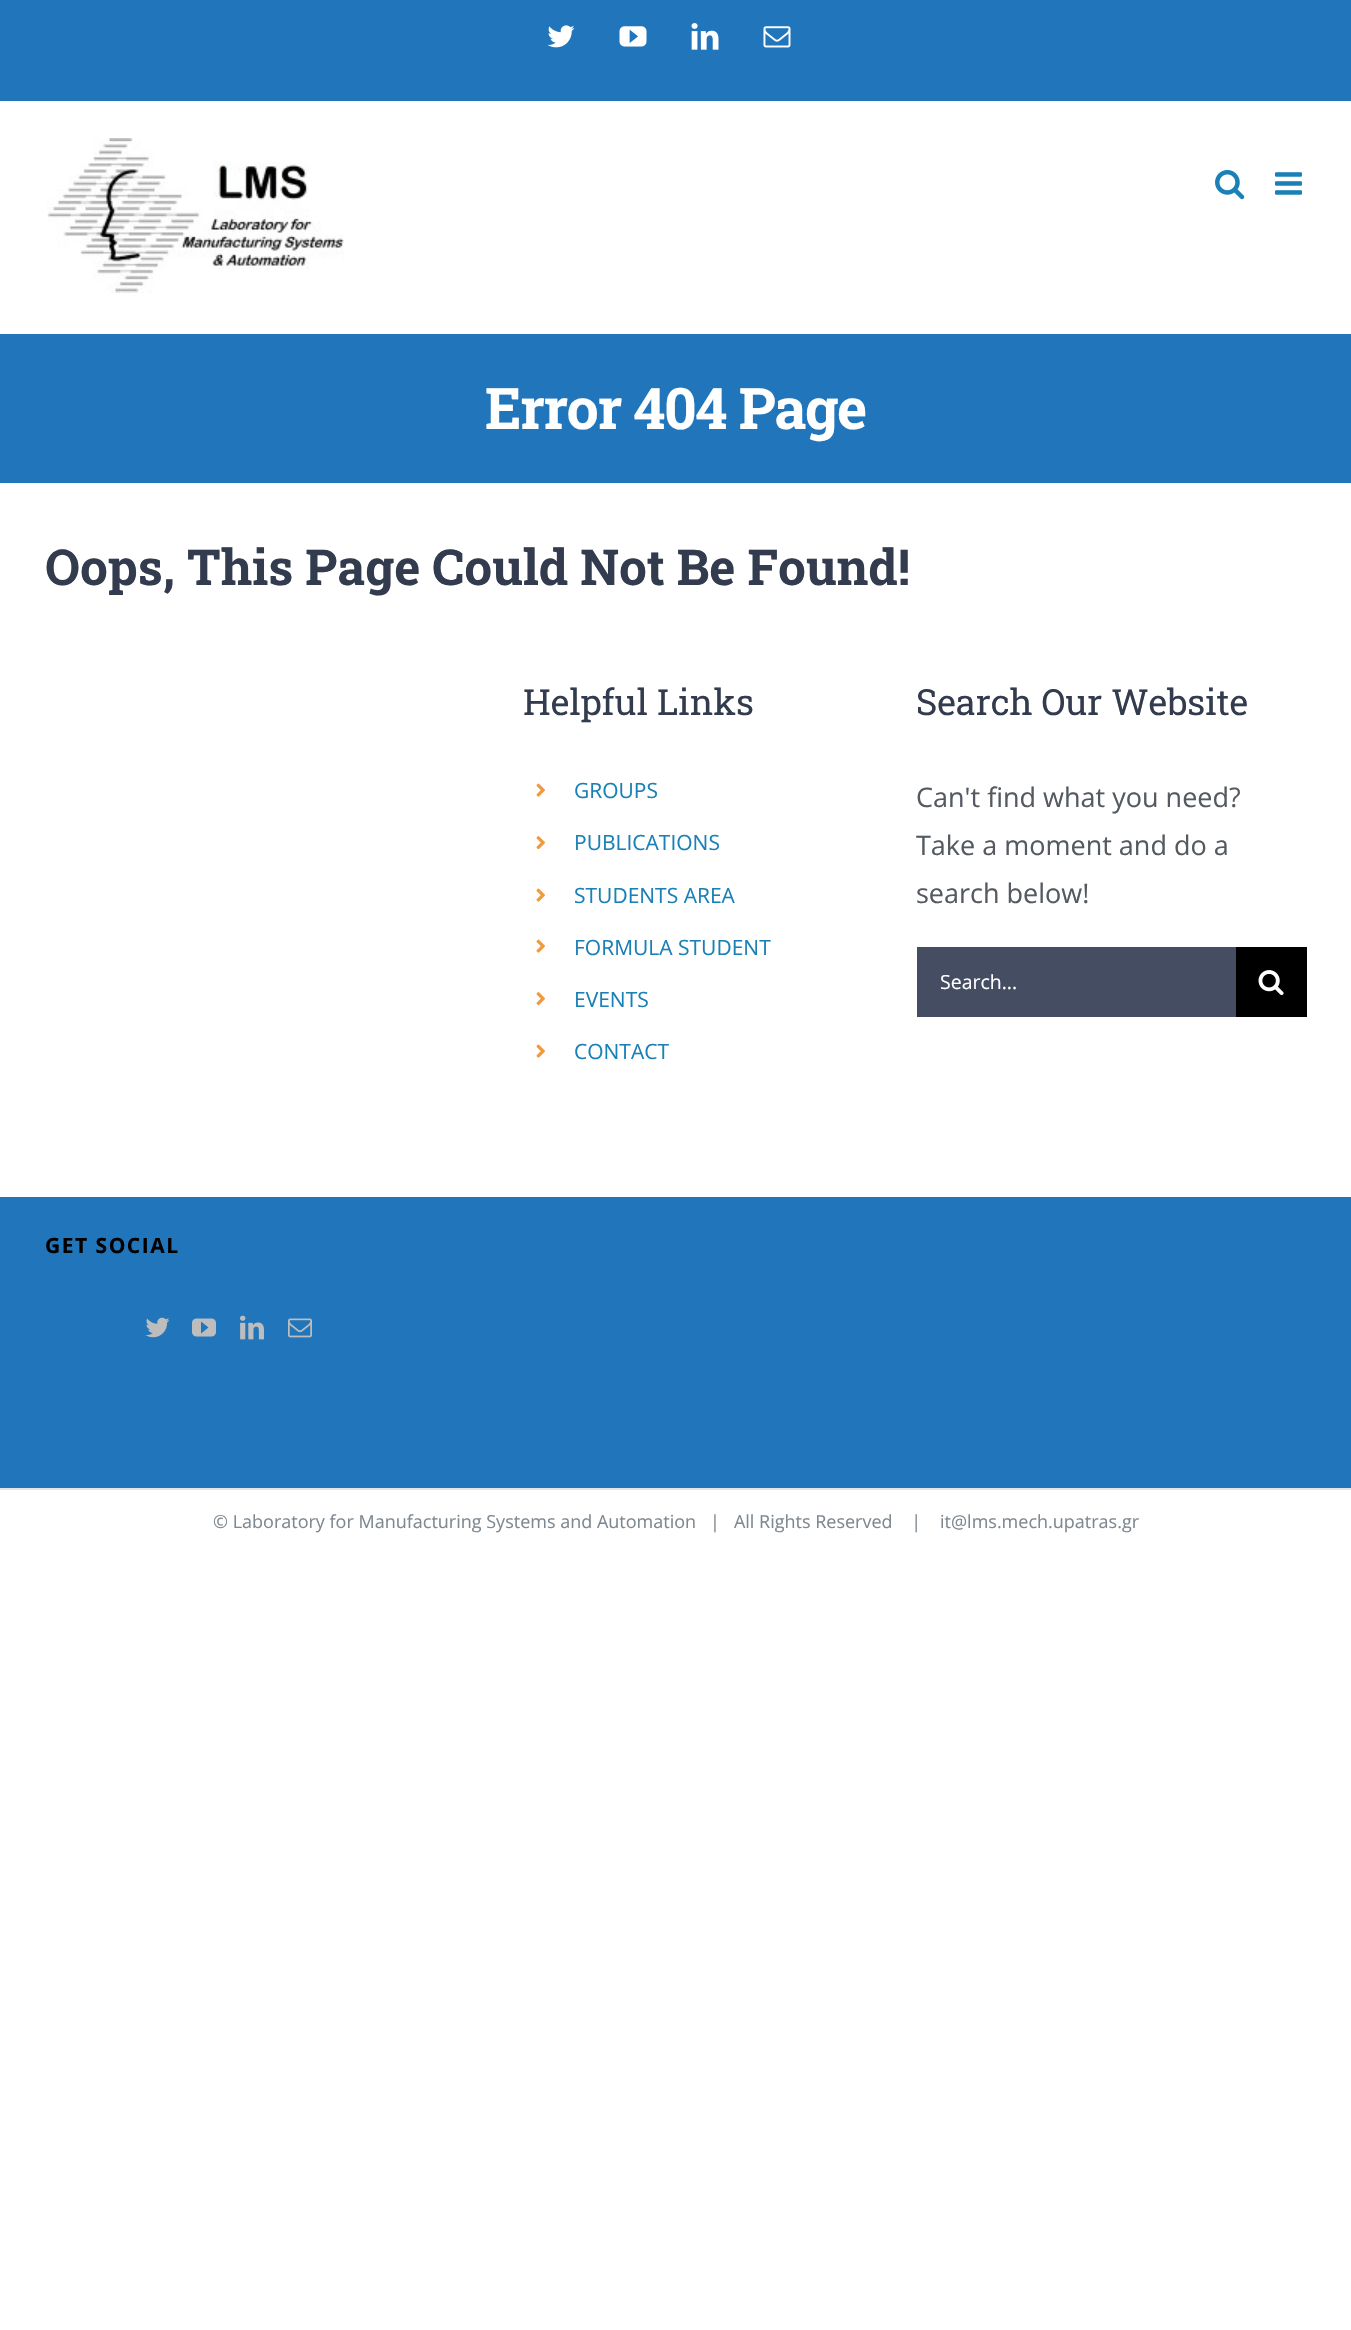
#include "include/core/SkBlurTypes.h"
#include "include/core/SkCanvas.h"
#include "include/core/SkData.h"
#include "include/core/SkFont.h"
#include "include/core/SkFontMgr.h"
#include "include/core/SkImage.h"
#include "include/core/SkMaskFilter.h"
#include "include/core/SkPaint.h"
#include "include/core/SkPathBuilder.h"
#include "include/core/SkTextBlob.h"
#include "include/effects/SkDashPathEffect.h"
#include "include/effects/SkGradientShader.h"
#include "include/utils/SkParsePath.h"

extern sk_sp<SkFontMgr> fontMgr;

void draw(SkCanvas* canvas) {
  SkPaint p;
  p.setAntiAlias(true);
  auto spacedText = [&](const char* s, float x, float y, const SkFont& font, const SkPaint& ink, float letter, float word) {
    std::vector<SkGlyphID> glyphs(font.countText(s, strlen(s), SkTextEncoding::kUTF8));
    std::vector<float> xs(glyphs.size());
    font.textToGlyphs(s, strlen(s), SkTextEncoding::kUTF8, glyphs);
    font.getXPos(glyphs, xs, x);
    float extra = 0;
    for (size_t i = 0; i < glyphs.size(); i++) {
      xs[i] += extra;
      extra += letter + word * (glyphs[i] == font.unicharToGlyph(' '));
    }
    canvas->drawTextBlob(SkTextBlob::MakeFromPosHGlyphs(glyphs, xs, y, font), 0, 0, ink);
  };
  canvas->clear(SK_ColorWHITE);
  p.setColor(SkColorSetRGB(32, 117, 187));
  canvas->drawRect(SkRect::MakeLTRB(0, 0, 1351, 101), p);
  canvas->drawImageRect(SkImages::DeferredFromEncodedData(SkData::MakeFromFileName("images/1.png")), SkRect::MakeLTRB(547, 25, 575, 48), SkSamplingOptions());
  canvas->drawImageRect(SkImages::DeferredFromEncodedData(SkData::MakeFromFileName("images/2.png")), SkRect::MakeLTRB(619, 26, 647, 47), SkSamplingOptions());
  canvas->drawImageRect(SkImages::DeferredFromEncodedData(SkData::MakeFromFileName("images/3.png")), SkRect::MakeLTRB(691, 23, 719, 50), SkSamplingOptions());
  canvas->drawImageRect(SkImages::DeferredFromEncodedData(SkData::MakeFromFileName("images/4.png")), SkRect::MakeLTRB(763, 26, 791, 48), SkSamplingOptions());
  canvas->drawImageRect(SkImages::DeferredFromEncodedData(SkData::MakeFromFileName("images/5.png")), SkRect::MakeLTRB(47, 138, 344, 293), SkSamplingOptions());
  canvas->drawImageRect(SkImages::DeferredFromEncodedData(SkData::MakeFromFileName("images/6.png")), SkRect::MakeLTRB(1215, 170, 1245, 200), SkSamplingOptions());
  canvas->drawImageRect(SkImages::DeferredFromEncodedData(SkData::MakeFromFileName("images/7.png")), SkRect::MakeLTRB(1275, 172, 1302, 195), SkSamplingOptions());
  canvas->drawRect(SkRect::MakeLTRB(0, 334, 1351, 483), p);
  canvas->drawImageRect(SkImages::DeferredFromEncodedData(SkData::MakeFromFileName("images/8.png")), SkRect::MakeLTRB(536, 783, 545, 797), SkSamplingOptions());
  canvas->drawImageRect(SkImages::DeferredFromEncodedData(SkData::MakeFromFileName("images/9.png")), SkRect::MakeLTRB(536, 836, 545, 850), SkSamplingOptions());
  canvas->drawImageRect(SkImages::DeferredFromEncodedData(SkData::MakeFromFileName("images/8.png")), SkRect::MakeLTRB(536, 888, 545, 902), SkSamplingOptions());
  canvas->drawImageRect(SkImages::DeferredFromEncodedData(SkData::MakeFromFileName("images/8.png")), SkRect::MakeLTRB(536, 939, 545, 953), SkSamplingOptions());
  canvas->drawImageRect(SkImages::DeferredFromEncodedData(SkData::MakeFromFileName("images/9.png")), SkRect::MakeLTRB(536, 992, 545, 1006), SkSamplingOptions());
  canvas->drawImageRect(SkImages::DeferredFromEncodedData(SkData::MakeFromFileName("images/8.png")), SkRect::MakeLTRB(536, 1044, 545, 1058), SkSamplingOptions());
  p.setColor(SkColorSetRGB(68, 77, 98));
  canvas->drawRect(SkRect::MakeLTRB(917, 947, 1236, 1017), p);
  p.setColor(SK_ColorBLACK);
  canvas->drawRect(SkRect::MakeLTRB(1236, 947, 1307, 1017), p);
  canvas->drawImageRect(SkImages::DeferredFromEncodedData(SkData::MakeFromFileName("images/10.png")), SkRect::MakeLTRB(1258, 970, 1284, 996), SkSamplingOptions());
  p.setColor(SkColorSetRGB(32, 117, 187));
  canvas->drawRect(SkRect::MakeLTRB(0, 1197, 1351, 1488), p);
  canvas->drawImageRect(SkImages::DeferredFromEncodedData(SkData::MakeFromFileName("images/11.png")), SkRect::MakeLTRB(145, 1317, 170, 1338), SkSamplingOptions());
  canvas->drawImageRect(SkImages::DeferredFromEncodedData(SkData::MakeFromFileName("images/12.png")), SkRect::MakeLTRB(192, 1318, 216, 1337), SkSamplingOptions());
  canvas->drawImageRect(SkImages::DeferredFromEncodedData(SkData::MakeFromFileName("images/13.png")), SkRect::MakeLTRB(240, 1315, 264, 1340), SkSamplingOptions());
  canvas->drawImageRect(SkImages::DeferredFromEncodedData(SkData::MakeFromFileName("images/14.png")), SkRect::MakeLTRB(288, 1318, 312, 1338), SkSamplingOptions());
  p.setColor(SkColorSetRGB(231, 228, 226));
  canvas->drawRect(SkRect::MakeLTRB(0, 1488, 1351, 1490), p);
  SkFont font1(fontMgr->matchFamilyStyle("Roboto Slab", SkFontStyle::Bold()), 57.25f);
  font1.setSubpixel(true);
  p.setColor(SK_ColorWHITE);
  spacedText("Error 404 Page", 485, 429, font1, p, -1.5f, 0);
  SkFont font2(fontMgr->matchFamilyStyle("Roboto Slab", SkFontStyle::Bold()), 49.5f);
  font2.setSubpixel(true);
  p.setColor(SkColorSetRGB(51, 60, 78));
  canvas->drawString("Oops, This Page Could Not Be Found!", 45, 585, font2, p);
  SkFont font3(fontMgr->matchFamilyStyle("Roboto Slab", SkFontStyle::Normal()), 36);
  font3.setSubpixel(true);
  canvas->drawString("Helpful Links", 523, 715, font3, p);
  SkFont font4(fontMgr->matchFamilyStyle("Open Sans", SkFontStyle::Normal()), 21);
  font4.setSubpixel(true);
  p.setColor(SkColorSetRGB(26, 128, 182));
  canvas->drawString("GROUPS", 574, 798, font4, p);
  canvas->drawString("PUBLICATIONS", 574, 850, font4, p);
  canvas->drawString("STUDENTS AREA", 574, 903, font4, p);
  canvas->drawString("FORMULA STUDENT", 574, 955, font4, p);
  canvas->drawString("EVENTS", 574, 1007, font4, p);
  canvas->drawString("CONTACT", 574, 1059, font4, p);
  p.setColor(SkColorSetRGB(51, 60, 78));
  canvas->drawString("Search Our Website", 916, 715, font3, p);
  SkFont font5(fontMgr->matchFamilyStyle("Open Sans", SkFontStyle::Normal()), 27);
  font5.setSubpixel(true);
  p.setColor(SkColorSetRGB(84, 90, 96));
  canvas->drawString("Can't find what you need?", 916, 807, font5, p);
  canvas->drawString("Take a moment and do a", 916, 855, font5, p);
  canvas->drawString("search below!", 916, 903, font5, p);
  SkFont font6(fontMgr->matchFamilyStyle("Open Sans", SkFontStyle::Normal()), 19.5f);
  font6.setSubpixel(true);
  p.setColor(SK_ColorWHITE);
  canvas->drawString("Search...", 940, 989, font6, p);
  SkFont font7(fontMgr->matchFamilyStyle("Open Sans", SkFontStyle::Bold()), 21);
  font7.setSubpixel(true);
  p.setColor(SK_ColorBLACK);
  spacedText("GET SOCIAL", 45, 1253, font7, p, 1.5f, 0);
  SkFont font8(fontMgr->matchFamilyStyle("Open Sans", SkFontStyle::Normal()), 18);
  font8.setSubpixel(true);
  p.setColor(SkColorSetRGB(126, 136, 144));
  canvas->drawString("© Laboratory for Manufacturing Systems and Automation", 213, 1528, font8, p);
  canvas->drawString("|   All Rights Reserved    |", 710, 1528, font8, p);
  canvas->drawString("it@lms.mech.upatras.gr", 940, 1528, font8, p);
}
